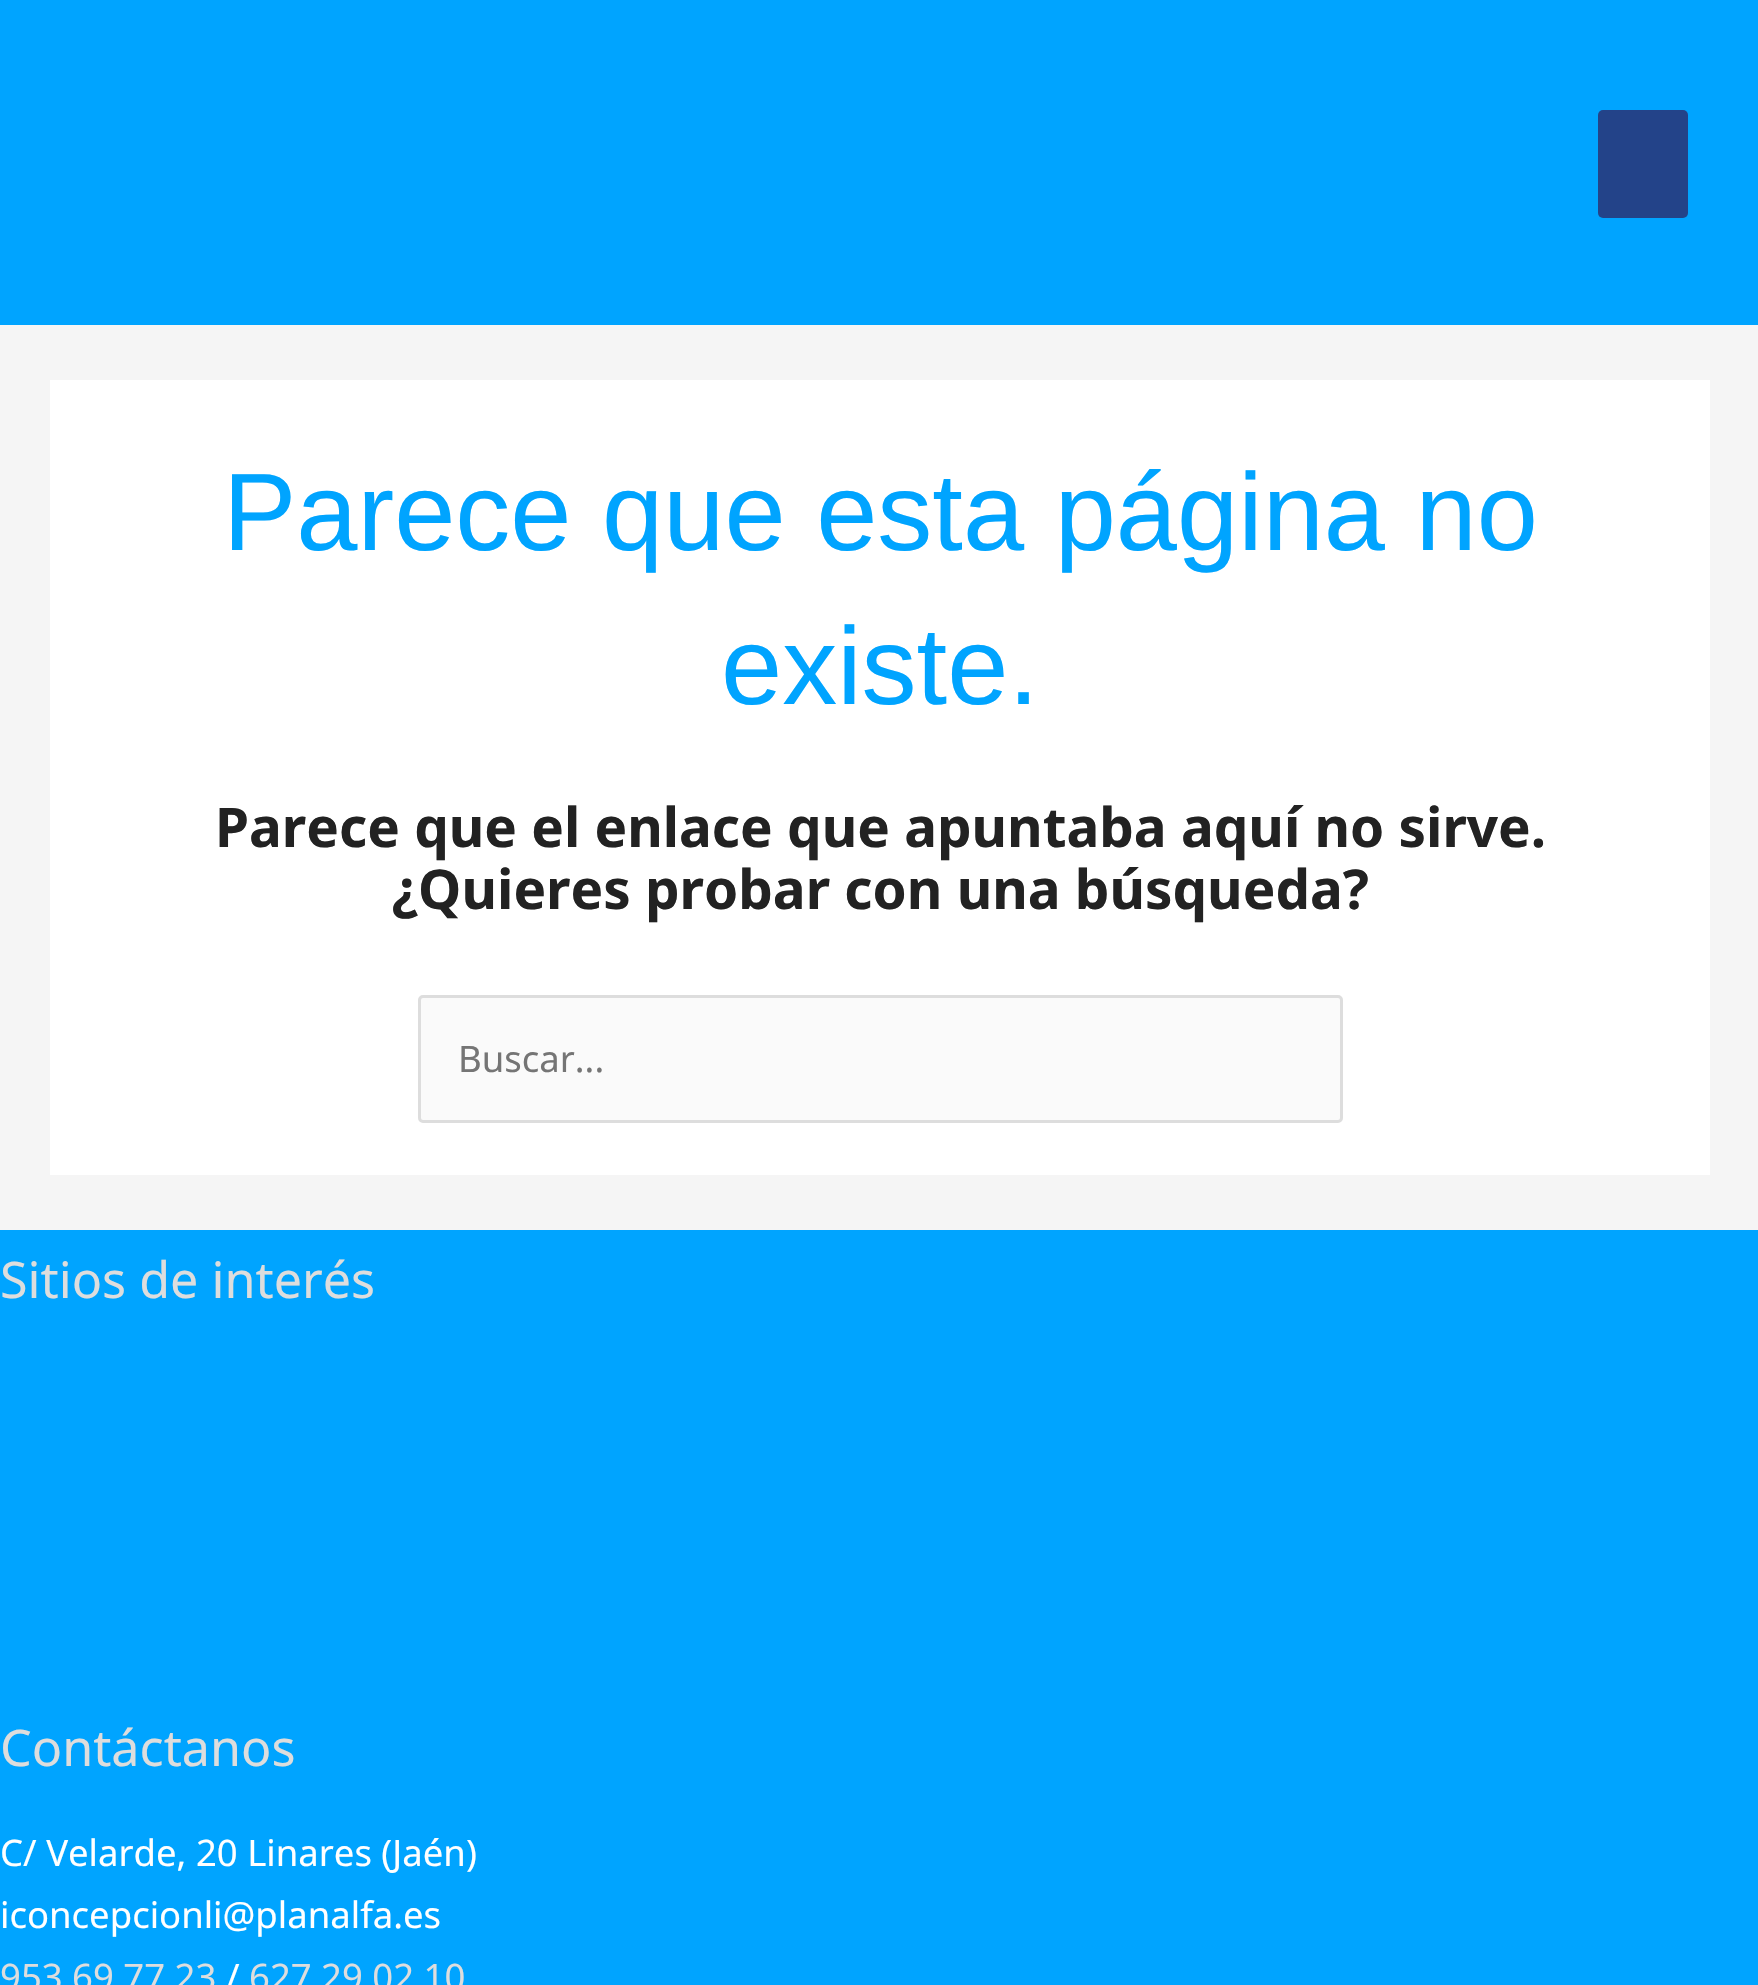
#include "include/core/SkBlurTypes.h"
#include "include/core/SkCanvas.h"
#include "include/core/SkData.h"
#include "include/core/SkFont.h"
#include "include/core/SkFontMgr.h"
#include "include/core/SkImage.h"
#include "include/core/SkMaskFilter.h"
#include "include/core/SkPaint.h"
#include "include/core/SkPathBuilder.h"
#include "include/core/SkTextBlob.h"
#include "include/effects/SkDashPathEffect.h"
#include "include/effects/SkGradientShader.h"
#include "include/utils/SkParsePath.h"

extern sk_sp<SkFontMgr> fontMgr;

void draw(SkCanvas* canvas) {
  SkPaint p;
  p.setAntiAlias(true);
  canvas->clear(SkColorSetRGB(245, 245, 245));
  p.setColor(SkColorSetRGB(0, 164, 255));
  canvas->drawRect(SkRect::MakeLTRB(0, 0, 1758, 325), p);
  p.setColor(SkColorSetRGB(35, 67, 137));
  canvas->drawRoundRect(SkRect::MakeLTRB(1598, 110, 1688, 218), 5, 5, p);
  p.setColor(SK_ColorWHITE);
  canvas->drawRect(SkRect::MakeLTRB(50, 380, 1710, 1175), p);
  p.setColor(SkColorSetRGB(250, 250, 250));
  canvas->drawRoundRect(SkRect::MakeLTRB(419.5f, 996.5f, 1341.5f, 1121.5f), 3.5f, 3.5f, p);
  p.setStyle(SkPaint::kStroke_Style);
  p.setStrokeWidth(3);
  p.setColor(SkColorSetRGB(221, 221, 221));
  canvas->drawRoundRect(SkRect::MakeLTRB(419.5f, 996.5f, 1341.5f, 1121.5f), 3.5f, 3.5f, p);
  p.setStyle(SkPaint::kFill_Style);
  p.setColor(SkColorSetRGB(0, 164, 255));
  canvas->drawRect(SkRect::MakeLTRB(0, 1230, 1758, 1985), p);
  SkFont font1(fontMgr->matchFamilyStyle("Liberation Sans", SkFontStyle::Normal()), 110);
  font1.setSubpixel(true);
  canvas->drawString("Parece que esta página no", 223, 550, font1, p);
  canvas->drawString("existe.", 721, 704, font1, p);
  SkFont font2(fontMgr->matchFamilyStyle("Noto Sans", SkFontStyle::Bold()), 54.75f);
  font2.setSubpixel(true);
  p.setColor(SkColorSetRGB(34, 34, 34));
  canvas->drawString("Parece que el enlace que apuntaba aquí no sirve.", 215, 847, font2, p);
  canvas->drawString("¿Quieres probar con una búsqueda?", 392, 909, font2, p);
  SkFont font3(fontMgr->matchFamilyStyle("Noto Sans", SkFontStyle::Normal()), 36.5f);
  font3.setSubpixel(true);
  p.setColor(SkColorSetRGB(117, 117, 117));
  canvas->drawString("Buscar...", 458, 1072, font3, p);
  SkFont font4(fontMgr->matchFamilyStyle("Noto Sans", SkFontStyle::Normal()), 50.25f);
  font4.setSubpixel(true);
  p.setColor(SkColorSetRGB(221, 221, 221));
  canvas->drawString("Sitios de interés", 0, 1298, font4, p);
  canvas->drawString("Contáctanos", 0, 1766, font4, p);
  p.setColor(SK_ColorWHITE);
  canvas->drawString("C/ Velarde, 20 Linares (Jaén)", 0, 1866, font3, p);
  canvas->drawString("iconcepcionli@planalfa.es", 0, 1928, font3, p);
  p.setColor(SkColorSetRGB(221, 221, 221));
  canvas->drawString("953 69 77 23", 0, 1990, font3, p);
  p.setColor(SK_ColorWHITE);
  canvas->drawString("/", 226, 1990, font3, p);
  p.setColor(SkColorSetRGB(221, 221, 221));
  canvas->drawString("627 29 02 10", 249, 1990, font3, p);
}
